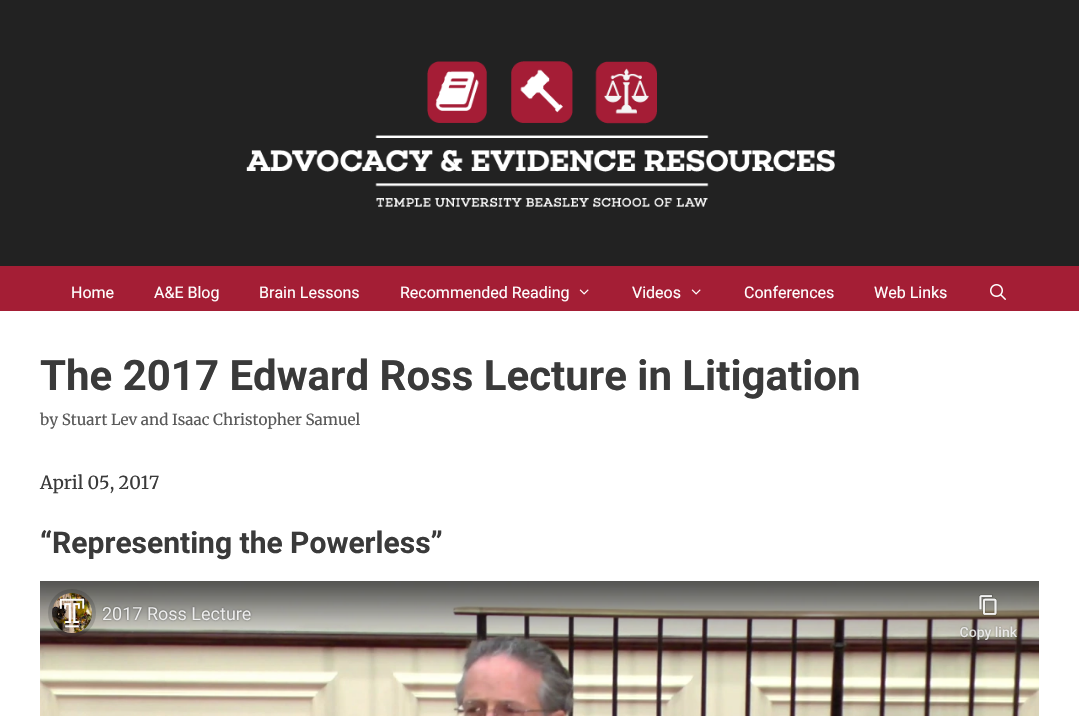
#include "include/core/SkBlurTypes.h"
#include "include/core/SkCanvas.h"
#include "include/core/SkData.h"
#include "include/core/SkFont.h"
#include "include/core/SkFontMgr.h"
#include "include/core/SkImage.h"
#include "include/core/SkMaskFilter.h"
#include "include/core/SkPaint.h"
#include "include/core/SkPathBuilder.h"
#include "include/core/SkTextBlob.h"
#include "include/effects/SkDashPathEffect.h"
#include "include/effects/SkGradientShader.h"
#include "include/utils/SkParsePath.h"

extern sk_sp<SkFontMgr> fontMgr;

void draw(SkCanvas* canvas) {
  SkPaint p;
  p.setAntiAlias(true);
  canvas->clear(SK_ColorWHITE);
  p.setColor(SkColorSetRGB(34, 34, 34));
  canvas->drawRect(SkRect::MakeLTRB(0, 0, 1079, 266), p);
  canvas->drawImageRect(SkImages::DeferredFromEncodedData(SkData::MakeFromFileName("images/1.png")), SkRect::MakeLTRB(246, 61, 835, 208), SkSamplingOptions());
  p.setColor(SkColorSetRGB(164, 30, 53));
  canvas->drawRect(SkRect::MakeLTRB(0, 266, 1079, 311), p);
  canvas->drawImageRect(SkImages::DeferredFromEncodedData(SkData::MakeFromFileName("images/2.png")), SkRect::MakeLTRB(579, 289, 589, 295), SkSamplingOptions());
  canvas->drawImageRect(SkImages::DeferredFromEncodedData(SkData::MakeFromFileName("images/2.png")), SkRect::MakeLTRB(691, 289, 701, 295), SkSamplingOptions());
  canvas->drawImageRect(SkImages::DeferredFromEncodedData(SkData::MakeFromFileName("images/3.png")), SkRect::MakeLTRB(990, 284, 1006, 300), SkSamplingOptions());
  canvas->drawImageRect(SkImages::DeferredFromEncodedData(SkData::MakeFromFileName("images/4.png")), SkRect::MakeLTRB(40, 581, 1039, 716), SkSamplingOptions());
  SkFont font1(fontMgr->matchFamilyStyle("Roboto", SkFontStyle::Normal()), 16);
  font1.setSubpixel(true);
  p.setColor(SK_ColorWHITE);
  canvas->drawString("Home", 71, 298, font1, p);
  canvas->drawString("A&E Blog", 154, 298, font1, p);
  canvas->drawString("Brain Lessons", 259, 298, font1, p);
  canvas->drawString("Recommended Reading", 400, 298, font1, p);
  canvas->drawString("Videos", 632, 298, font1, p);
  canvas->drawString("Conferences", 744, 298, font1, p);
  canvas->drawString("Web Links", 874, 298, font1, p);
  SkFont font2(fontMgr->matchFamilyStyle("Roboto", SkFontStyle::Bold()), 42);
  font2.setSubpixel(true);
  p.setColor(SkColorSetRGB(58, 58, 58));
  canvas->drawString("The 2017 Edward Ross Lecture in Litigation", 40, 390, font2, p);
  SkFont font3(fontMgr->matchFamilyStyle("Merriweather", SkFontStyle::Normal()), 15.3f);
  font3.setSubpixel(true);
  p.setColor(SkColorSetRGB(89, 89, 89));
  canvas->drawString("by Stuart Lev and Isaac Christopher Samuel", 40, 425, font3, p);
  SkFont font4(fontMgr->matchFamilyStyle("Merriweather", SkFontStyle::Normal()), 18);
  font4.setSubpixel(true);
  p.setColor(SkColorSetRGB(58, 58, 58));
  canvas->drawString("April 05, 2017", 40, 489, font4, p);
  SkFont font5(fontMgr->matchFamilyStyle("Roboto", SkFontStyle::Bold()), 30);
  font5.setSubpixel(true);
  canvas->drawString("“Representing the Powerless”", 40, 553, font5, p);
}
